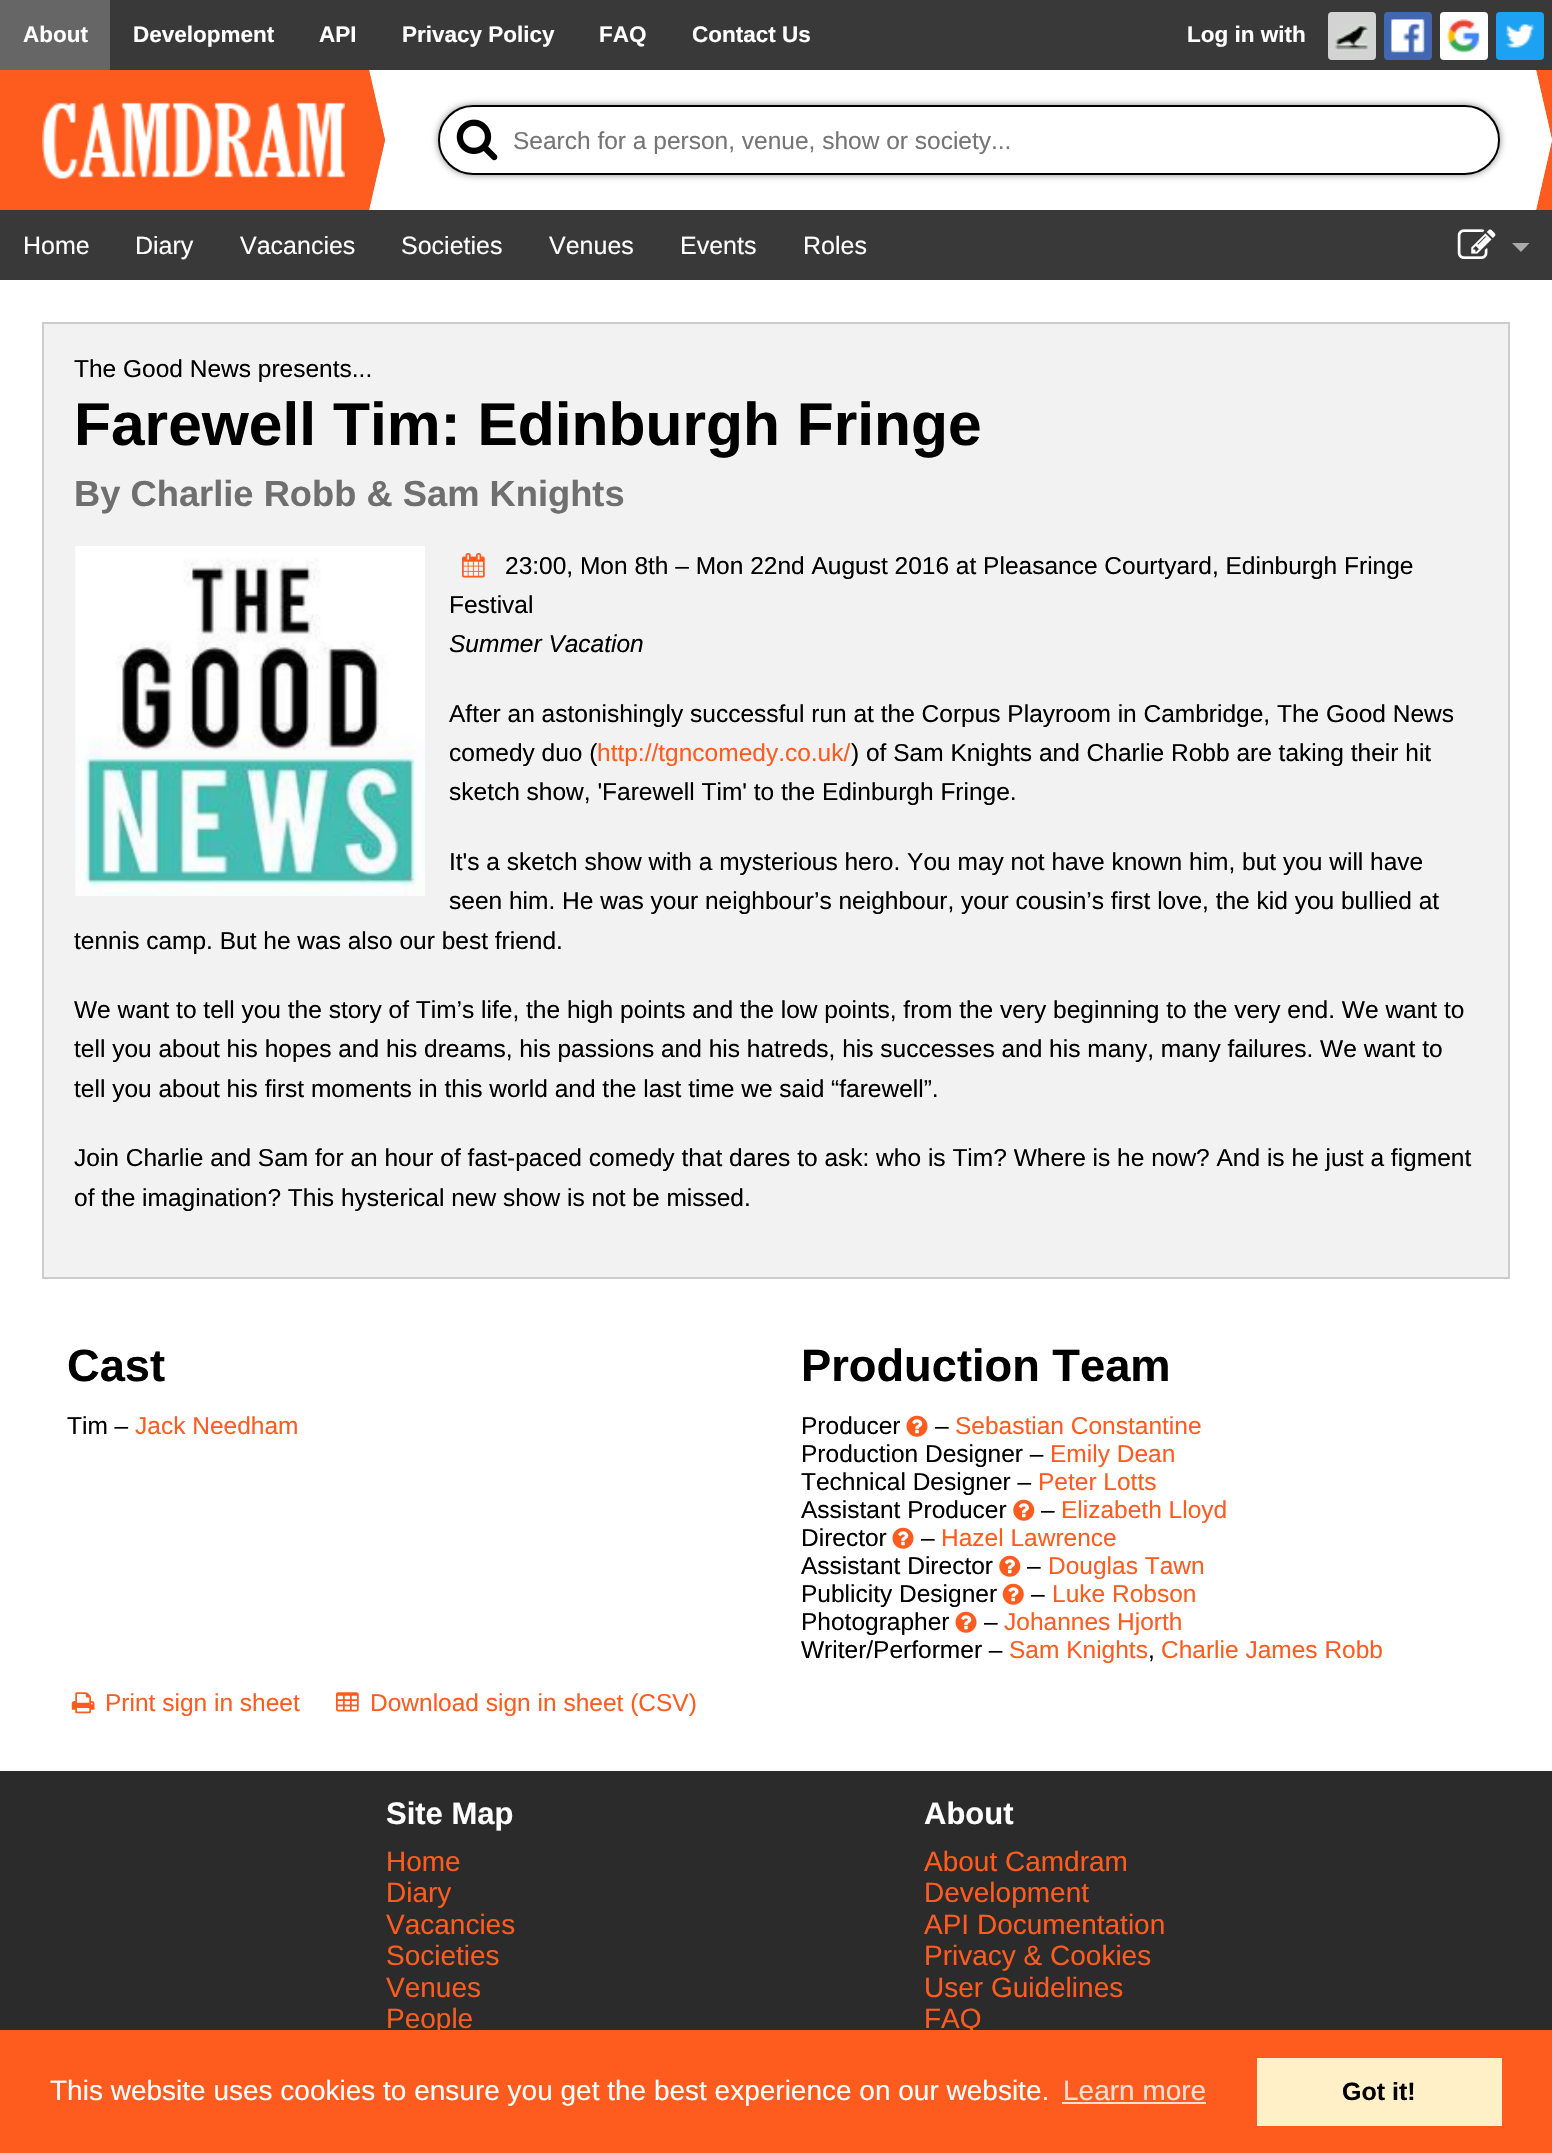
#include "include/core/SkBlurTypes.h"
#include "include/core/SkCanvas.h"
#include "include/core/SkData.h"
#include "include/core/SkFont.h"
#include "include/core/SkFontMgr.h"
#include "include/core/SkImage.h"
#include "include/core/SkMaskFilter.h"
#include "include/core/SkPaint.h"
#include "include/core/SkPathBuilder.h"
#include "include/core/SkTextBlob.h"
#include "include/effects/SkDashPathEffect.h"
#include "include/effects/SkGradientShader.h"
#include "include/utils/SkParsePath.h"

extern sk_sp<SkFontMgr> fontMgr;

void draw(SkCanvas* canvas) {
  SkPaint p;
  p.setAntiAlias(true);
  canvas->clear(SK_ColorWHITE);
  p.setColor(SkColorSetRGB(58, 57, 58));
  canvas->drawRect(SkRect::MakeLTRB(110, 0, 1552, 70), p);
  p.setColor(SkColorSetRGB(102, 102, 102));
  canvas->drawRect(SkRect::MakeLTRB(0, 0, 110, 70), p);
  p.setColor(SkColorSetRGB(211, 211, 211));
  canvas->drawRoundRect(SkRect::MakeLTRB(1328, 12, 1376, 60), 4, 4, p);
  canvas->drawImageRect(SkImages::DeferredFromEncodedData(SkData::MakeFromFileName("images/1.png")), SkRect::MakeLTRB(1335, 24, 1369, 51), SkSamplingOptions());
  p.setColor(SkColorSetRGB(66, 103, 178));
  canvas->drawRoundRect(SkRect::MakeLTRB(1384, 12, 1432, 60), 4, 4, p);
  canvas->drawImageRect(SkImages::DeferredFromEncodedData(SkData::MakeFromFileName("images/2.png")), SkRect::MakeLTRB(1391, 19, 1425, 53), SkSamplingOptions());
  p.setColor(SK_ColorWHITE);
  canvas->drawRoundRect(SkRect::MakeLTRB(1440, 12, 1488, 60), 4, 4, p);
  canvas->drawImageRect(SkImages::DeferredFromEncodedData(SkData::MakeFromFileName("images/3.png")), SkRect::MakeLTRB(1447, 19, 1481, 53), SkSamplingOptions());
  p.setColor(SkColorSetRGB(29, 161, 242));
  canvas->drawRoundRect(SkRect::MakeLTRB(1496, 12, 1544, 60), 4, 4, p);
  canvas->drawImageRect(SkImages::DeferredFromEncodedData(SkData::MakeFromFileName("images/4.png")), SkRect::MakeLTRB(1505, 24, 1535, 48), SkSamplingOptions());
  p.setColor(SkColorSetRGB(254, 92, 31));
  canvas->drawRect(SkRect::MakeLTRB(0, 70, 385, 210), p);
  canvas->drawImageRect(SkImages::DeferredFromEncodedData(SkData::MakeFromFileName("images/5.png")), SkRect::MakeLTRB(42, 102, 345, 179), SkSamplingOptions());
  p.setColor(SK_ColorWHITE);
  canvas->drawPath(SkPathBuilder().moveTo(369, 70).lineTo(385, 70).lineTo(385, 140).close().detach(), p);
  canvas->drawPath(SkPathBuilder().moveTo(385, 210).lineTo(369, 210).lineTo(385, 140).close().detach(), p);
  p.setColor(SkColorSetRGB(254, 92, 31));
  canvas->drawPath(SkPathBuilder().moveTo(369, 210).lineTo(369, 70).lineTo(385, 140).close().detach(), p);
  p.setColor(SkColorSetRGB(136, 136, 136));
  p.setMaskFilter(SkMaskFilter::MakeBlur(kNormal_SkBlurStyle, 3.5f));
  canvas->drawRoundRect(SkRect::MakeLTRB(438, 105, 1500, 175), 35, 35, p);
  p.setMaskFilter(nullptr);
  p.setColor(SK_ColorWHITE);
  canvas->drawRoundRect(SkRect::MakeLTRB(439, 106, 1499, 174), 34, 34, p);
  p.setStyle(SkPaint::kStroke_Style);
  p.setStrokeWidth(2);
  p.setColor(SK_ColorBLACK);
  canvas->drawRoundRect(SkRect::MakeLTRB(439, 106, 1499, 174), 34, 34, p);
  canvas->drawImageRect(SkImages::DeferredFromEncodedData(SkData::MakeFromFileName("images/6.png")), SkRect::MakeLTRB(456, 119, 498, 161), SkSamplingOptions());
  p.setStyle(SkPaint::kFill_Style);
  p.setColor(SkColorSetRGB(254, 92, 31));
  canvas->drawPath(SkPathBuilder().moveTo(1536, 70).lineTo(1552, 70).lineTo(1552, 140).close().detach(), p);
  canvas->drawPath(SkPathBuilder().moveTo(1552, 210).lineTo(1536, 210).lineTo(1552, 140).close().detach(), p);
  p.setColor(SK_ColorWHITE);
  canvas->drawPath(SkPathBuilder().moveTo(1536, 210).lineTo(1536, 70).lineTo(1552, 140).close().detach(), p);
  p.setColor(SkColorSetRGB(58, 57, 58));
  canvas->drawRect(SkRect::MakeLTRB(0, 210, 1552, 280), p);
  canvas->drawImageRect(SkImages::DeferredFromEncodedData(SkData::MakeFromFileName("images/7.png")), SkRect::MakeLTRB(1457, 229, 1496, 259), SkSamplingOptions());
  p.setColor(SkColorSetRGB(170, 170, 170));
  canvas->drawPath(SkPathBuilder().moveTo(1512, 243).lineTo(1529.5f, 243).lineTo(1521, 252).close().detach(), p);
  p.setColor(SkColorSetRGB(242, 242, 242));
  canvas->drawRect(SkRect::MakeLTRB(43, 323, 1509, 1278), p);
  p.setStyle(SkPaint::kStroke_Style);
  p.setColor(SkColorSetRGB(204, 204, 204));
  canvas->drawRect(SkRect::MakeLTRB(43, 323, 1509, 1278), p);
  canvas->drawImageRect(SkImages::DeferredFromEncodedData(SkData::MakeFromFileName("images/8.png")), SkRect::MakeLTRB(75, 546, 425, 896), SkSamplingOptions());
  canvas->drawImageRect(SkImages::DeferredFromEncodedData(SkData::MakeFromFileName("images/9.png")), SkRect::MakeLTRB(462, 553, 485, 578), SkSamplingOptions());
  canvas->drawImageRect(SkImages::DeferredFromEncodedData(SkData::MakeFromFileName("images/10.png")), SkRect::MakeLTRB(906, 1415, 928, 1437), SkSamplingOptions());
  canvas->drawImageRect(SkImages::DeferredFromEncodedData(SkData::MakeFromFileName("images/11.png")), SkRect::MakeLTRB(1013, 1499, 1035, 1521), SkSamplingOptions());
  canvas->drawImageRect(SkImages::DeferredFromEncodedData(SkData::MakeFromFileName("images/10.png")), SkRect::MakeLTRB(892, 1527, 914, 1549), SkSamplingOptions());
  canvas->drawImageRect(SkImages::DeferredFromEncodedData(SkData::MakeFromFileName("images/11.png")), SkRect::MakeLTRB(999, 1555, 1021, 1577), SkSamplingOptions());
  canvas->drawImageRect(SkImages::DeferredFromEncodedData(SkData::MakeFromFileName("images/12.png")), SkRect::MakeLTRB(1002, 1583, 1024, 1605), SkSamplingOptions());
  canvas->drawImageRect(SkImages::DeferredFromEncodedData(SkData::MakeFromFileName("images/10.png")), SkRect::MakeLTRB(955, 1611, 977, 1633), SkSamplingOptions());
  canvas->drawImageRect(SkImages::DeferredFromEncodedData(SkData::MakeFromFileName("images/13.png")), SkRect::MakeLTRB(71, 1692, 95, 1714), SkSamplingOptions());
  canvas->drawImageRect(SkImages::DeferredFromEncodedData(SkData::MakeFromFileName("images/14.png")), SkRect::MakeLTRB(336, 1692, 359, 1712), SkSamplingOptions());
  p.setStyle(SkPaint::kFill_Style);
  p.setColor(SkColorSetRGB(43, 43, 43));
  canvas->drawRect(SkRect::MakeLTRB(0, 1771, 1552, 2030), p);
  p.setColor(SkColorSetRGB(254, 92, 31));
  canvas->drawRect(SkRect::MakeLTRB(0, 2030, 1552, 2153), p);
  p.setColor(SkColorSetRGB(255, 222, 210));
  canvas->drawRect(SkRect::MakeLTRB(1062, 2102, 1206, 2104), p);
  p.setColor(SkColorSetRGB(255, 240, 200));
  canvas->drawRect(SkRect::MakeLTRB(1257, 2058, 1502, 2126), p);
  SkFont font1(fontMgr->matchFamilyStyle("Liberation Sans", SkFontStyle::Bold()), 22.5f);
  font1.setSubpixel(true);
  p.setColor(SK_ColorWHITE);
  canvas->drawString("About", 23, 42, font1, p);
  canvas->drawString("Development", 133, 42, font1, p);
  canvas->drawString("API", 319, 42, font1, p);
  canvas->drawString("Privacy Policy", 402, 42, font1, p);
  canvas->drawString("FAQ", 599, 42, font1, p);
  canvas->drawString("Contact Us", 692, 42, font1, p);
  canvas->drawString("Log in with", 1187, 42, font1, p);
  SkFont font2(fontMgr->matchFamilyStyle("Liberation Sans", SkFontStyle::Normal()), 24.5f);
  font2.setSubpixel(true);
  p.setColor(SkColorSetRGB(117, 117, 117));
  canvas->drawString("Search for a person, venue, show or society...", 513, 149, font2, p);
  SkFont font3(fontMgr->matchFamilyStyle("Liberation Sans", SkFontStyle::Normal()), 25);
  font3.setSubpixel(true);
  p.setColor(SK_ColorWHITE);
  canvas->drawString("Home", 23, 254, font3, p);
  canvas->drawString("Diary", 135, 254, font3, p);
  canvas->drawString("Vacancies", 240, 254, font3, p);
  canvas->drawString("Societies", 401, 254, font3, p);
  canvas->drawString("Venues", 549, 254, font3, p);
  canvas->drawString("Events", 680, 254, font3, p);
  canvas->drawString("Roles", 803, 254, font3, p);
  p.setColor(SK_ColorBLACK);
  canvas->drawString("The Good News presents...", 74, 377, font2, p);
  SkFont font4(fontMgr->matchFamilyStyle("Liberation Sans", SkFontStyle::Bold()), 60.5f);
  font4.setSubpixel(true);
  canvas->drawString("Farewell Tim: Edinburgh Fringe", 74, 445, font4, p);
  SkFont font5(fontMgr->matchFamilyStyle("Liberation Sans", SkFontStyle::Bold()), 36.3f);
  font5.setSubpixel(true);
  p.setColor(SkColorSetRGB(111, 111, 111));
  canvas->drawString("By Charlie Robb & Sam Knights", 74, 506, font5, p);
  p.setColor(SK_ColorBLACK);
  canvas->drawString("23:00, Mon 8th – Mon 22nd August 2016 at Pleasance Courtyard, Edinburgh Fringe", 505, 574, font2, p);
  canvas->drawString("Festival", 449, 613, font2, p);
  SkFont font6(fontMgr->matchFamilyStyle("Liberation Sans", SkFontStyle::Italic()), 24.5f);
  font6.setSubpixel(true);
  canvas->drawString("Summer Vacation", 449, 652, font6, p);
  canvas->drawString("After an astonishingly successful run at the Corpus Playroom in Cambridge, The Good News", 449, 722, font2, p);
  canvas->drawString("comedy duo (", 449, 761, font2, p);
  p.setColor(SkColorSetRGB(254, 92, 31));
  canvas->drawString("http://tgncomedy.co.uk/", 597, 761, font2, p);
  p.setColor(SK_ColorBLACK);
  canvas->drawString(") of Sam Knights and Charlie Robb are taking their hit", 851, 761, font2, p);
  canvas->drawString("sketch show, 'Farewell Tim' to the Edinburgh Fringe.", 449, 800, font2, p);
  canvas->drawString("It's a sketch show with a mysterious hero. You may not have known him, but you will have", 449, 870, font2, p);
  canvas->drawString("seen him. He was your neighbour’s neighbour, your cousin’s first love, the kid you bullied at", 449, 909, font2, p);
  canvas->drawString("tennis camp. But he was also our best friend.", 74, 949, font2, p);
  canvas->drawString("We want to tell you the story of Tim’s life, the high points and the low points, from the very beginning to the very end. We want to", 74, 1018, font2, p);
  canvas->drawString("tell you about his hopes and his dreams, his passions and his hatreds, his successes and his many, many failures. We want to", 74, 1057, font2, p);
  canvas->drawString("tell you about his first moments in this world and the last time we said “farewell”.", 74, 1097, font2, p);
  canvas->drawString("Join Charlie and Sam for an hour of fast-paced comedy that dares to ask: who is Tim? Where is he now? And is he just a figment", 74, 1166, font2, p);
  canvas->drawString("of the imagination? This hysterical new show is not be missed.", 74, 1206, font2, p);
  SkFont font7(fontMgr->matchFamilyStyle("Liberation Sans", SkFontStyle::Bold()), 45.25f);
  font7.setSubpixel(true);
  canvas->drawString("Cast", 67, 1381, font7, p);
  canvas->drawString("Tim –", 67, 1434, font2, p);
  p.setColor(SkColorSetRGB(254, 92, 31));
  canvas->drawString("Jack Needham", 135, 1434, font2, p);
  p.setColor(SK_ColorBLACK);
  canvas->drawString("Production Team", 801, 1381, font7, p);
  canvas->drawString("Producer", 801, 1434, font2, p);
  canvas->drawString("–", 935, 1434, font2, p);
  p.setColor(SkColorSetRGB(254, 92, 31));
  canvas->drawString("Sebastian Constantine", 955, 1434, font2, p);
  p.setColor(SK_ColorBLACK);
  canvas->drawString("Production Designer –", 801, 1462, font2, p);
  p.setColor(SkColorSetRGB(254, 92, 31));
  canvas->drawString("Emily Dean", 1050, 1462, font2, p);
  p.setColor(SK_ColorBLACK);
  canvas->drawString("Technical Designer –", 801, 1490, font2, p);
  p.setColor(SkColorSetRGB(254, 92, 31));
  canvas->drawString("Peter Lotts", 1038, 1490, font2, p);
  p.setColor(SK_ColorBLACK);
  canvas->drawString("Assistant Producer", 801, 1518, font2, p);
  canvas->drawString("–", 1041, 1518, font2, p);
  p.setColor(SkColorSetRGB(254, 92, 31));
  canvas->drawString("Elizabeth Lloyd", 1061, 1518, font2, p);
  p.setColor(SK_ColorBLACK);
  canvas->drawString("Director", 801, 1546, font2, p);
  canvas->drawString("–", 921, 1546, font2, p);
  p.setColor(SkColorSetRGB(254, 92, 31));
  canvas->drawString("Hazel Lawrence", 941, 1546, font2, p);
  p.setColor(SK_ColorBLACK);
  canvas->drawString("Assistant Director", 801, 1574, font2, p);
  canvas->drawString("–", 1027, 1574, font2, p);
  p.setColor(SkColorSetRGB(254, 92, 31));
  canvas->drawString("Douglas Tawn", 1048, 1574, font2, p);
  p.setColor(SK_ColorBLACK);
  canvas->drawString("Publicity Designer", 801, 1602, font2, p);
  canvas->drawString("–", 1031, 1602, font2, p);
  p.setColor(SkColorSetRGB(254, 92, 31));
  canvas->drawString("Luke Robson", 1052, 1602, font2, p);
  p.setColor(SK_ColorBLACK);
  canvas->drawString("Photographer", 801, 1630, font2, p);
  canvas->drawString("–", 984, 1630, font2, p);
  p.setColor(SkColorSetRGB(254, 92, 31));
  canvas->drawString("Johannes Hjorth", 1004, 1630, font2, p);
  p.setColor(SK_ColorBLACK);
  canvas->drawString("Writer/Performer –", 801, 1658, font2, p);
  p.setColor(SkColorSetRGB(254, 92, 31));
  canvas->drawString("Sam Knights", 1009, 1658, font2, p);
  p.setColor(SK_ColorBLACK);
  canvas->drawString(",", 1148, 1658, font2, p);
  p.setColor(SkColorSetRGB(254, 92, 31));
  canvas->drawString("Charlie James Robb", 1161, 1658, font2, p);
  canvas->drawString("Print sign in sheet", 105, 1711, font2, p);
  canvas->drawString("Download sign in sheet (CSV)", 370, 1711, font2, p);
  SkFont font8(fontMgr->matchFamilyStyle("Liberation Sans", SkFontStyle::Bold()), 31);
  font8.setSubpixel(true);
  p.setColor(SK_ColorWHITE);
  canvas->drawString("Site Map", 386, 1824, font8, p);
  SkFont font9(fontMgr->matchFamilyStyle("Liberation Sans", SkFontStyle::Normal()), 28);
  font9.setSubpixel(true);
  p.setColor(SkColorSetRGB(254, 92, 31));
  canvas->drawString("Home", 386, 1871, font9, p);
  canvas->drawString("Diary", 386, 1902, font9, p);
  canvas->drawString("Vacancies", 386, 1934, font9, p);
  canvas->drawString("Societies", 386, 1965, font9, p);
  canvas->drawString("Venues", 386, 1997, font9, p);
  canvas->drawString("People", 386, 2028, font9, p);
  p.setColor(SK_ColorWHITE);
  canvas->drawString("About", 924, 1824, font8, p);
  p.setColor(SkColorSetRGB(254, 92, 31));
  canvas->drawString("About Camdram", 924, 1871, font9, p);
  canvas->drawString("Development", 924, 1902, font9, p);
  canvas->drawString("API Documentation", 924, 1934, font9, p);
  canvas->drawString("Privacy & Cookies", 924, 1965, font9, p);
  canvas->drawString("User Guidelines", 924, 1997, font9, p);
  canvas->drawString("FAQ", 924, 2028, font9, p);
  p.setColor(SK_ColorWHITE);
  canvas->drawString("This website uses cookies to ensure you get the best experience on our website.", 50, 2100, font9, p);
  p.setColor(SkColorSetRGB(255, 222, 210));
  canvas->drawString("Learn more", 1063, 2100, font9, p);
  SkFont font10(fontMgr->matchFamilyStyle("Liberation Sans", SkFontStyle::Bold()), 25);
  font10.setSubpixel(true);
  p.setColor(SK_ColorBLACK);
  canvas->drawString("Got it!", 1342, 2100, font10, p);
}
